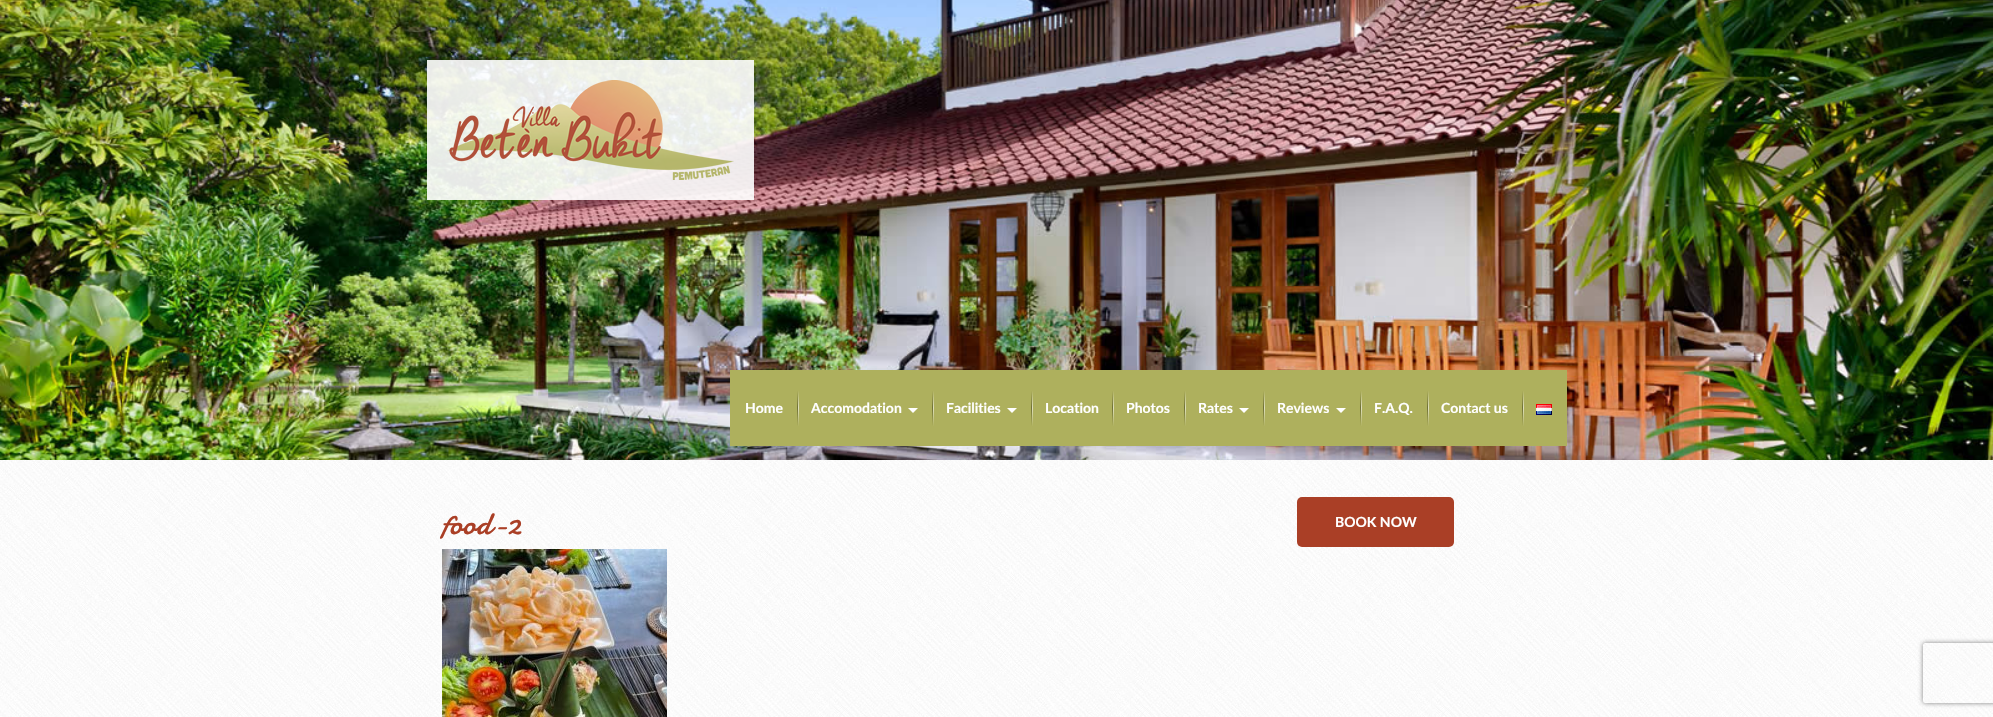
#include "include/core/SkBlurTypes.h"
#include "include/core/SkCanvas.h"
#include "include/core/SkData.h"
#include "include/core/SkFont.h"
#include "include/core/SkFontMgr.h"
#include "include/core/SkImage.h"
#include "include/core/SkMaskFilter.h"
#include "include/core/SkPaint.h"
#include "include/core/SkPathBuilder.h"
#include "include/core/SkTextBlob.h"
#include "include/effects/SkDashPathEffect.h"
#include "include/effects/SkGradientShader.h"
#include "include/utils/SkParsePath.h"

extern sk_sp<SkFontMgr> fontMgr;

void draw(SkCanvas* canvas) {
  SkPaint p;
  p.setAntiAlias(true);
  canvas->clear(SK_ColorWHITE);
  canvas->drawImageRect(SkImages::DeferredFromEncodedData(SkData::MakeFromFileName("images/1.png")), SkRect::MakeLTRB(0, 460, 1993, 717), SkSamplingOptions());
  canvas->drawImageRect(SkImages::DeferredFromEncodedData(SkData::MakeFromFileName("images/2.png")), SkRect::MakeLTRB(0, 0, 1993, 460), SkSamplingOptions());
  p.setColor(SkColorSetARGB(230, 255, 255, 255));
  canvas->drawRect(SkRect::MakeLTRB(427, 60, 754, 200), p);
  canvas->drawImageRect(SkImages::DeferredFromEncodedData(SkData::MakeFromFileName("images/3.png")), SkRect::MakeLTRB(447, 80, 734, 180), SkSamplingOptions());
  p.setColor(SkColorSetRGB(174, 176, 93));
  canvas->drawRect(SkRect::MakeLTRB(730, 370, 1567, 446), p);
  canvas->drawImageRect(SkImages::DeferredFromEncodedData(SkData::MakeFromFileName("images/4.png")), SkRect::MakeLTRB(797, 391, 799, 426), SkSamplingOptions());
  p.setColor(SK_ColorWHITE);
  canvas->drawPath(SkPathBuilder().moveTo(908, 408).lineTo(918, 408).lineTo(913, 413).close().detach(), p);
  canvas->drawImageRect(SkImages::DeferredFromEncodedData(SkData::MakeFromFileName("images/4.png")), SkRect::MakeLTRB(932, 391, 934, 426), SkSamplingOptions());
  canvas->drawPath(SkPathBuilder().moveTo(1007, 408).lineTo(1017, 408).lineTo(1012, 413).close().detach(), p);
  canvas->drawImageRect(SkImages::DeferredFromEncodedData(SkData::MakeFromFileName("images/4.png")), SkRect::MakeLTRB(1031, 391, 1033, 426), SkSamplingOptions());
  canvas->drawImageRect(SkImages::DeferredFromEncodedData(SkData::MakeFromFileName("images/4.png")), SkRect::MakeLTRB(1112, 391, 1114, 426), SkSamplingOptions());
  canvas->drawImageRect(SkImages::DeferredFromEncodedData(SkData::MakeFromFileName("images/4.png")), SkRect::MakeLTRB(1184, 391, 1186, 426), SkSamplingOptions());
  canvas->drawPath(SkPathBuilder().moveTo(1239, 408).lineTo(1249, 408).lineTo(1244, 413).close().detach(), p);
  canvas->drawImageRect(SkImages::DeferredFromEncodedData(SkData::MakeFromFileName("images/4.png")), SkRect::MakeLTRB(1263, 391, 1265, 426), SkSamplingOptions());
  canvas->drawPath(SkPathBuilder().moveTo(1336, 408).lineTo(1346, 408).lineTo(1341, 413).close().detach(), p);
  canvas->drawImageRect(SkImages::DeferredFromEncodedData(SkData::MakeFromFileName("images/4.png")), SkRect::MakeLTRB(1360, 391, 1362, 426), SkSamplingOptions());
  canvas->drawImageRect(SkImages::DeferredFromEncodedData(SkData::MakeFromFileName("images/4.png")), SkRect::MakeLTRB(1427, 391, 1429, 426), SkSamplingOptions());
  canvas->drawImageRect(SkImages::DeferredFromEncodedData(SkData::MakeFromFileName("images/4.png")), SkRect::MakeLTRB(1522, 391, 1524, 426), SkSamplingOptions());
  canvas->drawImageRect(SkImages::DeferredFromEncodedData(SkData::MakeFromFileName("images/5.png")), SkRect::MakeLTRB(1536, 404, 1552, 415), SkSamplingOptions());
  canvas->drawImageRect(SkImages::DeferredFromEncodedData(SkData::MakeFromFileName("images/6.png")), SkRect::MakeLTRB(442, 549, 667, 717), SkSamplingOptions());
  p.setColor(SkColorSetRGB(170, 63, 38));
  canvas->drawRoundRect(SkRect::MakeLTRB(1297, 497, 1454, 547), 5, 5, p);
  canvas->save();
  canvas->clipPath(SkPathBuilder(SkPathFillType::kEvenOdd).moveTo(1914, 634).lineTo(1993, 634).lineTo(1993, 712).lineTo(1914, 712).close().moveTo(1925, 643).lineTo(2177, 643).cubicTo(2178, 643, 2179, 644, 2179, 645).lineTo(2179, 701).cubicTo(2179, 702, 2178, 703, 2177, 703).lineTo(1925, 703).cubicTo(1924, 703, 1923, 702, 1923, 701).lineTo(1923, 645).cubicTo(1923, 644, 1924, 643, 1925, 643).close().detach(), true);
  p.setColor(SkColorSetRGB(128, 128, 128));
  p.setMaskFilter(SkMaskFilter::MakeBlur(kNormal_SkBlurStyle, 2.5f));
  canvas->drawRoundRect(SkRect::MakeLTRB(1923, 643, 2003, 703), 2, 2, p);
  p.setMaskFilter(nullptr);
  canvas->restore();
  SkFont font1(fontMgr->matchFamilyStyle("Lato", SkFontStyle::Bold()), 14);
  font1.setSubpixel(true);
  p.setColor(SK_ColorWHITE);
  canvas->drawString("Home", 745, 413, font1, p);
  canvas->drawString("Accomodation", 811, 413, font1, p);
  canvas->drawString("Facilities", 946, 413, font1, p);
  canvas->drawString("Location", 1045, 413, font1, p);
  canvas->drawString("Photos", 1126, 413, font1, p);
  canvas->drawString("Rates", 1198, 413, font1, p);
  canvas->drawString("Reviews", 1277, 413, font1, p);
  canvas->drawString("F.A.Q.", 1374, 413, font1, p);
  canvas->drawString("Contact us", 1441, 413, font1, p);
  SkFont font2(fontMgr->matchFamilyStyle("Damion", SkFontStyle::Normal()), 32);
  font2.setSubpixel(true);
  p.setColor(SkColorSetRGB(170, 63, 38));
  canvas->drawString("food-2", 442, 534, font2, p);
  p.setColor(SK_ColorWHITE);
  canvas->drawString("BOOK NOW", 1335, 527, font1, p);
}
